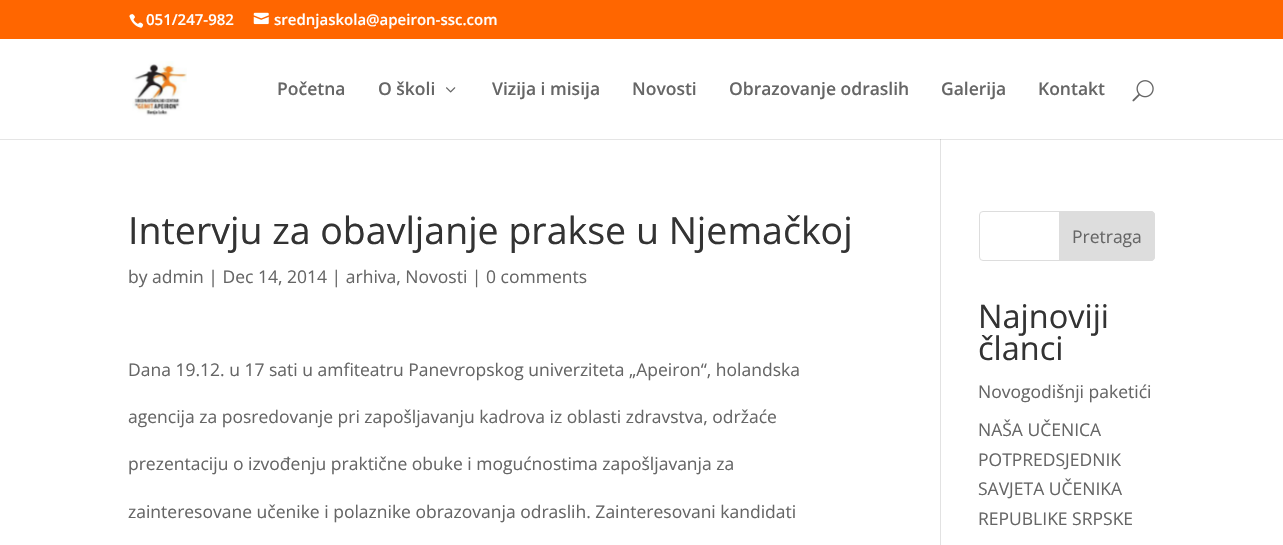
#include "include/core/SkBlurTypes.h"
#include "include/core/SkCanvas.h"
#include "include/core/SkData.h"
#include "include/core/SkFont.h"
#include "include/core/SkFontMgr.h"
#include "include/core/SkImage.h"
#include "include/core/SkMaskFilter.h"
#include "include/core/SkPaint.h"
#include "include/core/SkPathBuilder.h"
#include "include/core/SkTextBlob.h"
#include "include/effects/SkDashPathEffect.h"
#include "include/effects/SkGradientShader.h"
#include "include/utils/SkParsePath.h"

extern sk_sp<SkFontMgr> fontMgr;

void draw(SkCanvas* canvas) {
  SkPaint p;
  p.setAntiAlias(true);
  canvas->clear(SK_ColorWHITE);
  p.setColor(SkColorSetRGB(255, 102, 0));
  canvas->drawRect(SkRect::MakeLTRB(0, 0, 1283, 39), p);
  canvas->drawImageRect(SkImages::DeferredFromEncodedData(SkData::MakeFromFileName("images/1.png")), SkRect::MakeLTRB(129, 14, 144, 28), SkSamplingOptions());
  canvas->drawImageRect(SkImages::DeferredFromEncodedData(SkData::MakeFromFileName("images/2.png")), SkRect::MakeLTRB(253, 12, 269, 25), SkSamplingOptions());
  p.setColor(SkColorSetRGB(226, 226, 226));
  canvas->drawRect(SkRect::MakeLTRB(940, 139, 941, 545), p);
  p.setColor(SkColorSetARGB(26, 0, 0, 0));
  canvas->drawPath(SkPathBuilder().moveTo(0, 139).lineTo(0, 140).lineTo(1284, 140).lineTo(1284, 40).lineTo(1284, 139).close().detach(), p);
  canvas->drawImageRect(SkImages::DeferredFromEncodedData(SkData::MakeFromFileName("images/3.png")), SkRect::MakeLTRB(132, 61, 187, 116), SkSamplingOptions());
  canvas->drawImageRect(SkImages::DeferredFromEncodedData(SkData::MakeFromFileName("images/4.png")), SkRect::MakeLTRB(446, 87, 456, 93), SkSamplingOptions());
  canvas->drawImageRect(SkImages::DeferredFromEncodedData(SkData::MakeFromFileName("images/5.png")), SkRect::MakeLTRB(1132, 80, 1154, 102), SkSamplingOptions());
  p.setStyle(SkPaint::kStroke_Style);
  p.setStrokeWidth(1);
  p.setColor(SkColorSetRGB(221, 221, 221));
  canvas->drawRoundRect(SkRect::MakeLTRB(979.5f, 211.5f, 1154.5f, 260.5f), 3.5f, 3.5f, p);
  p.setStyle(SkPaint::kFill_Style);
  canvas->drawPath(SkPathBuilder().moveTo(1059.5f, 211.5f).lineTo(1151, 211.5f).cubicTo(1153, 211.5f, 1154.5f, 213, 1154.5f, 215).lineTo(1154.5f, 257).cubicTo(1154.5f, 259, 1153, 260.5f, 1151, 260.5f).lineTo(1059.5f, 260.5f).close().detach(), p);
  p.setStyle(SkPaint::kStroke_Style);
  canvas->drawPath(SkPathBuilder().moveTo(1059.5f, 211.5f).lineTo(1151, 211.5f).cubicTo(1153, 211.5f, 1154.5f, 213, 1154.5f, 215).lineTo(1154.5f, 257).cubicTo(1154.5f, 259, 1153, 260.5f, 1151, 260.5f).lineTo(1059.5f, 260.5f).close().detach(), p);
  SkFont font1(fontMgr->matchFamilyStyle("Open Sans", SkFontStyle(600, SkFontStyle::kNormal_Width, SkFontStyle::kUpright_Slant)), 15);
  font1.setSubpixel(true);
  p.setStyle(SkPaint::kFill_Style);
  p.setColor(SK_ColorWHITE);
  canvas->drawString("051/247-982", 146, 25, font1, p);
  canvas->drawString("srednjaskola@apeiron-ssc.com", 274, 25, font1, p);
  SkFont font2(fontMgr->matchFamilyStyle("Open Sans", SkFontStyle(600, SkFontStyle::kNormal_Width, SkFontStyle::kUpright_Slant)), 17.5f);
  font2.setSubpixel(true);
  p.setColor(SkColorSetRGB(102, 102, 102));
  canvas->drawString("Početna", 277, 95, font2, p);
  canvas->drawString("O školi", 378, 95, font2, p);
  canvas->drawString("Vizija i misija", 492, 95, font2, p);
  canvas->drawString("Novosti", 632, 95, font2, p);
  canvas->drawString("Obrazovanje odraslih", 729, 95, font2, p);
  canvas->drawString("Galerija", 941, 95, font2, p);
  canvas->drawString("Kontakt", 1038, 95, font2, p);
  SkFont font3(fontMgr->matchFamilyStyle("Open Sans", SkFontStyle::Normal()), 37.5f);
  font3.setSubpixel(true);
  p.setColor(SkColorSetRGB(51, 51, 51));
  canvas->drawString("Intervju za obavljanje prakse u Njemačkoj", 128, 244, font3, p);
  SkFont font4(fontMgr->matchFamilyStyle("Open Sans", SkFontStyle::Normal()), 17.5f);
  font4.setSubpixel(true);
  p.setColor(SkColorSetRGB(102, 102, 102));
  canvas->drawString("by admin | Dec 14, 2014 | arhiva, Novosti | 0 comments", 128, 283, font4, p);
  canvas->drawString("Dana 19.12. u 17 sati u amfiteatru Panevropskog univerziteta „Apeiron“, holandska", 128, 376, font4, p);
  canvas->drawString("agencija za posredovanje pri zapošljavanju kadrova iz oblasti zdravstva, održaće", 128, 423, font4, p);
  canvas->drawString("prezentaciju o izvođenju praktične obuke i mogućnostima zapošljavanja za", 128, 470, font4, p);
  canvas->drawString("zainteresovane učenike i polaznike obrazovanja odraslih. Zainteresovani kandidati", 128, 518, font4, p);
  canvas->drawString("Pretraga", 1072, 243, font4, p);
  SkFont font5(fontMgr->matchFamilyStyle("Open Sans", SkFontStyle::Normal()), 32.5f);
  font5.setSubpixel(true);
  p.setColor(SkColorSetRGB(51, 51, 51));
  canvas->drawString("Najnoviji", 978, 328, font5, p);
  canvas->drawString("članci", 978, 360, font5, p);
  p.setColor(SkColorSetRGB(102, 102, 102));
  canvas->drawString("Novogodišnji paketići", 978, 398, font4, p);
  canvas->drawString("NAŠA UČENICA", 978, 436, font4, p);
  canvas->drawString("POTPREDSJEDNIK", 978, 466, font4, p);
  canvas->drawString("SAVJETA UČENIKA", 978, 495, font4, p);
  canvas->drawString("REPUBLIKE SRPSKE", 978, 525, font4, p);
}
